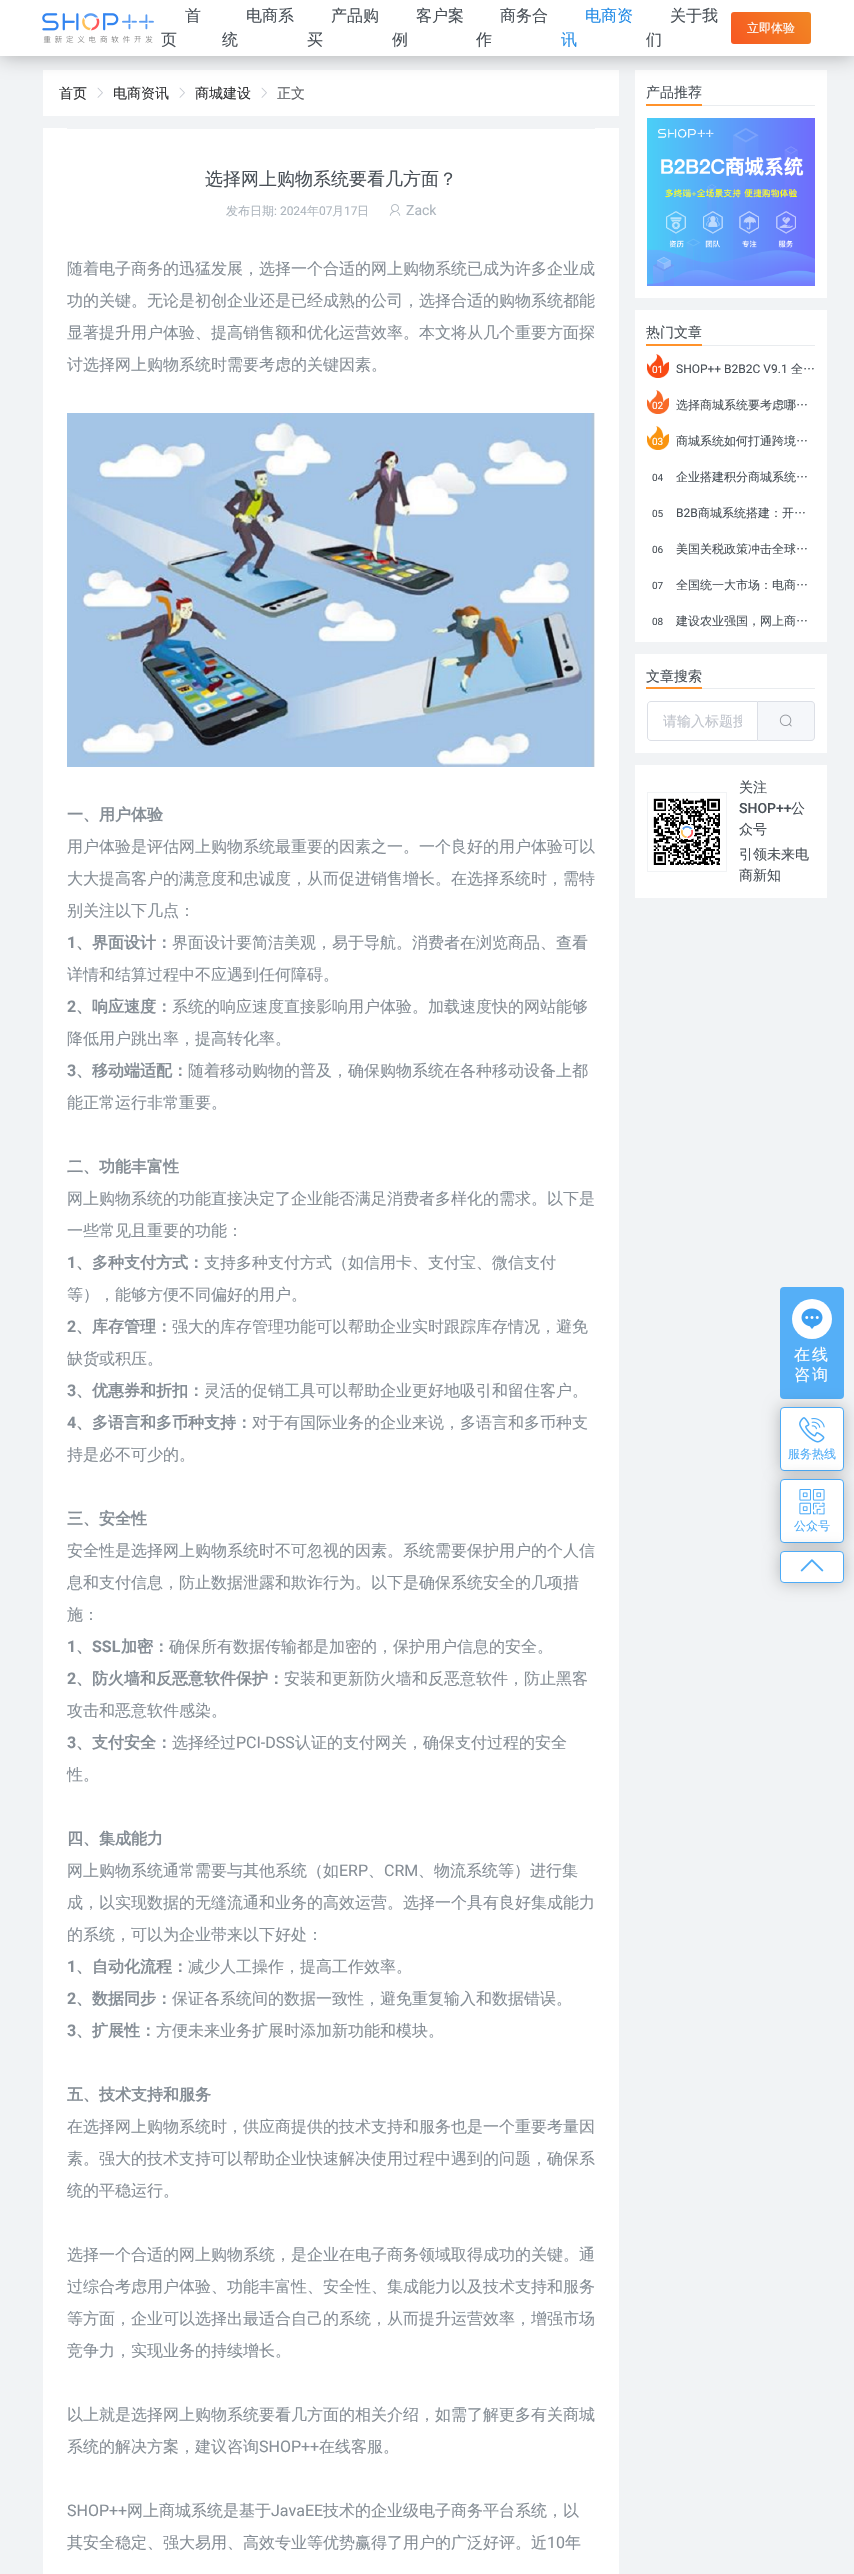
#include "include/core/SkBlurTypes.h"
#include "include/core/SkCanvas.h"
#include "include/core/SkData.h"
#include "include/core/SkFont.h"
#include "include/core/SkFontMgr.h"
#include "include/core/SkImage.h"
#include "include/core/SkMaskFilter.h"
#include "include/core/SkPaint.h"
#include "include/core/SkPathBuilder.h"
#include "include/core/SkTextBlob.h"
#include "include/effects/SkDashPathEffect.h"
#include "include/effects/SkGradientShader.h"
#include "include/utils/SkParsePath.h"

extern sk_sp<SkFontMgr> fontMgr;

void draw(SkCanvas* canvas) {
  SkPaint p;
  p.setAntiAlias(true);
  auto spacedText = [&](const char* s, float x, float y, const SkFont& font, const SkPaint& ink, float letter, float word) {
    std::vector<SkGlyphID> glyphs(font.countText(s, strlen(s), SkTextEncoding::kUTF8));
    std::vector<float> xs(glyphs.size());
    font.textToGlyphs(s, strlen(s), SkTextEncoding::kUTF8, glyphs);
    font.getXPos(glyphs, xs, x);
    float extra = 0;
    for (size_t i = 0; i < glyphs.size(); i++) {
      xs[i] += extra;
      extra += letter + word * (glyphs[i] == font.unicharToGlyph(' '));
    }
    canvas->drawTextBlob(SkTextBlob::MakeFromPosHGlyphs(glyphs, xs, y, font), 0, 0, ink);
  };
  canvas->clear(SkColorSetRGB(241, 243, 245));
  p.setColor(SK_ColorWHITE);
  canvas->drawRect(SkRect::MakeLTRB(43, 70, 619, 116), p);
  canvas->drawRect(SkRect::MakeLTRB(635, 70, 827, 298), p);
  p.setColor(SkColorSetARGB(77, 0, 0, 0));
  p.setMaskFilter(SkMaskFilter::MakeBlur(kNormal_SkBlurStyle, 10));
  canvas->drawRect(SkRect::MakeLTRB(0, 0, 854, 56), p);
  p.setMaskFilter(nullptr);
  p.setColor(SK_ColorWHITE);
  canvas->drawRect(SkRect::MakeLTRB(0, 0, 854, 56), p);
  canvas->drawImageRect(SkImages::DeferredFromEncodedData(SkData::MakeFromFileName("images/1.png")), SkRect::MakeLTRB(42, 13, 154, 43), SkSamplingOptions());
  {
    const SkColor colors[] = {SkColorSetRGB(247, 88, 34), SkColorSetRGB(241, 135, 35)};
    const float stops[] = {0, 1};
    const SkPoint ends[] = {{737, 52}, {805, 3.9f}};
    p.setShader(SkGradientShader::MakeLinear(ends, colors, stops, 2, SkTileMode::kClamp));
    p.setAlpha(255);
  }
  canvas->drawRoundRect(SkRect::MakeLTRB(731, 12, 811, 44), 3, 3, p);
  canvas->drawImageRect(SkImages::DeferredFromEncodedData(SkData::MakeFromFileName("images/2.png")), SkRect::MakeLTRB(97, 87, 103, 98), SkSamplingOptions());
  canvas->drawImageRect(SkImages::DeferredFromEncodedData(SkData::MakeFromFileName("images/2.png")), SkRect::MakeLTRB(179, 87, 185, 98), SkSamplingOptions());
  canvas->drawImageRect(SkImages::DeferredFromEncodedData(SkData::MakeFromFileName("images/2.png")), SkRect::MakeLTRB(261, 87, 267, 98), SkSamplingOptions());
  p.setShader(nullptr);
  p.setColor(SK_ColorWHITE);
  canvas->drawRect(SkRect::MakeLTRB(43, 128, 619, 2574), p);
  p.setColor(SkColorSetRGB(241, 243, 245));
  canvas->drawRect(SkRect::MakeLTRB(67, 128, 595, 129), p);
  canvas->drawImageRect(SkImages::DeferredFromEncodedData(SkData::MakeFromFileName("images/3.png")), SkRect::MakeLTRB(389, 204, 401, 216), SkSamplingOptions());
  canvas->drawImageRect(SkImages::DeferredFromEncodedData(SkData::MakeFromFileName("images/4.png")), SkRect::MakeLTRB(67, 413, 595, 767), SkSamplingOptions());
  p.setColor(SkColorSetRGB(233, 236, 239));
  canvas->drawRect(SkRect::MakeLTRB(702, 105, 815, 106), p);
  p.setColor(SkColorSetRGB(255, 146, 43));
  canvas->drawRect(SkRect::MakeLTRB(646, 104, 702, 106), p);
  canvas->drawImageRect(SkImages::DeferredFromEncodedData(SkData::MakeFromFileName("images/5.png")), SkRect::MakeLTRB(647, 118, 815, 286), SkSamplingOptions());
  p.setColor(SK_ColorWHITE);
  canvas->drawRect(SkRect::MakeLTRB(635, 310, 827, 642), p);
  p.setColor(SkColorSetRGB(233, 236, 239));
  canvas->drawRect(SkRect::MakeLTRB(702, 345, 815, 346), p);
  p.setColor(SkColorSetRGB(255, 146, 43));
  canvas->drawRect(SkRect::MakeLTRB(646, 344, 702, 346), p);
  canvas->drawImageRect(SkImages::DeferredFromEncodedData(SkData::MakeFromFileName("images/6.png")), SkRect::MakeLTRB(647, 354, 669, 378), SkSamplingOptions());
  canvas->drawImageRect(SkImages::DeferredFromEncodedData(SkData::MakeFromFileName("images/7.png")), SkRect::MakeLTRB(647, 390, 669, 414), SkSamplingOptions());
  canvas->drawImageRect(SkImages::DeferredFromEncodedData(SkData::MakeFromFileName("images/8.png")), SkRect::MakeLTRB(647, 426, 669, 450), SkSamplingOptions());
  p.setColor(SK_ColorWHITE);
  canvas->drawRect(SkRect::MakeLTRB(635, 654, 827, 753), p);
  p.setColor(SkColorSetRGB(233, 236, 239));
  canvas->drawRect(SkRect::MakeLTRB(702, 688, 815, 689), p);
  p.setColor(SkColorSetRGB(255, 146, 43));
  canvas->drawRect(SkRect::MakeLTRB(646, 687, 702, 689), p);
  p.setStyle(SkPaint::kStroke_Style);
  p.setStrokeWidth(1);
  p.setColor(SkColorSetRGB(220, 223, 230));
  canvas->drawPath(SkPathBuilder().moveTo(651, 701.5f).lineTo(757.5f, 701.5f).lineTo(757.5f, 740.5f).lineTo(651, 740.5f).cubicTo(649, 740.5f, 647.5f, 739, 647.5f, 737).lineTo(647.5f, 705).cubicTo(647.5f, 703, 649, 701.5f, 651, 701.5f).close().detach(), p);
  p.setStyle(SkPaint::kFill_Style);
  p.setColor(SkColorSetRGB(245, 247, 250));
  canvas->drawPath(SkPathBuilder().moveTo(758, 701).lineTo(811, 701).cubicTo(813, 701, 815, 703, 815, 705).lineTo(815, 737).cubicTo(815, 739, 813, 741, 811, 741).lineTo(758, 741).close().detach(), p);
  p.setColor(SkColorSetRGB(220, 223, 230));
  canvas->drawPath(SkPathBuilder(SkPathFillType::kEvenOdd).moveTo(758, 701).lineTo(811, 701).cubicTo(813, 701, 815, 703, 815, 705).lineTo(815, 737).cubicTo(815, 739, 813, 741, 811, 741).lineTo(758, 741).close().moveTo(758, 702).lineTo(811, 702).cubicTo(813, 702, 814, 703, 814, 705).lineTo(814, 737).cubicTo(814, 739, 813, 740, 811, 740).lineTo(758, 740).close().detach(), p);
  canvas->drawImageRect(SkImages::DeferredFromEncodedData(SkData::MakeFromFileName("images/9.png")), SkRect::MakeLTRB(779, 714, 792, 727), SkSamplingOptions());
  p.setColor(SK_ColorWHITE);
  canvas->drawRect(SkRect::MakeLTRB(635, 765, 827, 898), p);
  p.setStyle(SkPaint::kStroke_Style);
  p.setColor(SkColorSetRGB(241, 243, 245));
  canvas->drawRect(SkRect::MakeLTRB(647.5f, 792.5f, 726.5f, 871.5f), p);
  canvas->drawImageRect(SkImages::DeferredFromEncodedData(SkData::MakeFromFileName("images/10.png")), SkRect::MakeLTRB(653, 798, 720, 865), SkSamplingOptions());
  p.setStyle(SkPaint::kFill_Style);
  p.setColor(SkColorSetRGB(85, 175, 247));
  canvas->drawRoundRect(SkRect::MakeLTRB(780, 1287, 844, 1399), 4, 4, p);
  p.setColor(SkColorSetRGB(254, 254, 255));
  canvas->drawCircle(812, 1319, 20, p);
  canvas->drawImageRect(SkImages::DeferredFromEncodedData(SkData::MakeFromFileName("images/11.png")), SkRect::MakeLTRB(801, 1308, 823, 1329), SkSamplingOptions());
  p.setColor(SkColorSetARGB(64, 0, 0, 0));
  p.setMaskFilter(SkMaskFilter::MakeBlur(kNormal_SkBlurStyle, 8));
  canvas->drawRoundRect(SkRect::MakeLTRB(780, 1407, 844, 1471), 4, 4, p);
  p.setMaskFilter(nullptr);
  p.setColor(SK_ColorWHITE);
  canvas->drawRoundRect(SkRect::MakeLTRB(780.5f, 1407.5f, 843.5f, 1470.5f), 3.5f, 3.5f, p);
  p.setStyle(SkPaint::kStroke_Style);
  p.setColor(SkColorSetRGB(77, 171, 247));
  canvas->drawRoundRect(SkRect::MakeLTRB(780.5f, 1407.5f, 843.5f, 1470.5f), 3.5f, 3.5f, p);
  canvas->drawImageRect(SkImages::DeferredFromEncodedData(SkData::MakeFromFileName("images/12.png")), SkRect::MakeLTRB(799, 1417, 825, 1443), SkSamplingOptions());
  p.setStyle(SkPaint::kFill_Style);
  p.setColor(SkColorSetARGB(64, 0, 0, 0));
  p.setMaskFilter(SkMaskFilter::MakeBlur(kNormal_SkBlurStyle, 8));
  canvas->drawRoundRect(SkRect::MakeLTRB(780, 1479, 844, 1543), 4, 4, p);
  p.setMaskFilter(nullptr);
  p.setColor(SK_ColorWHITE);
  canvas->drawRoundRect(SkRect::MakeLTRB(780.5f, 1479.5f, 843.5f, 1542.5f), 3.5f, 3.5f, p);
  p.setStyle(SkPaint::kStroke_Style);
  p.setColor(SkColorSetRGB(77, 171, 247));
  canvas->drawRoundRect(SkRect::MakeLTRB(780.5f, 1479.5f, 843.5f, 1542.5f), 3.5f, 3.5f, p);
  canvas->drawImageRect(SkImages::DeferredFromEncodedData(SkData::MakeFromFileName("images/13.png")), SkRect::MakeLTRB(799, 1489, 825, 1515), SkSamplingOptions());
  p.setStyle(SkPaint::kFill_Style);
  p.setColor(SkColorSetARGB(64, 0, 0, 0));
  p.setMaskFilter(SkMaskFilter::MakeBlur(kNormal_SkBlurStyle, 8));
  canvas->drawRoundRect(SkRect::MakeLTRB(780, 1551, 844, 1583), 4, 4, p);
  p.setMaskFilter(nullptr);
  p.setColor(SK_ColorWHITE);
  canvas->drawRoundRect(SkRect::MakeLTRB(780.5f, 1551.5f, 843.5f, 1582.5f), 3.5f, 3.5f, p);
  p.setStyle(SkPaint::kStroke_Style);
  p.setColor(SkColorSetRGB(77, 171, 247));
  canvas->drawRoundRect(SkRect::MakeLTRB(780.5f, 1551.5f, 843.5f, 1582.5f), 3.5f, 3.5f, p);
  canvas->drawImageRect(SkImages::DeferredFromEncodedData(SkData::MakeFromFileName("images/14.png")), SkRect::MakeLTRB(800, 1559, 824, 1572), SkSamplingOptions());
  SkFont font1(fontMgr->matchFamilyStyle("WenQuanYi Zen Hei", SkFontStyle(500, SkFontStyle::kNormal_Width, SkFontStyle::kUpright_Slant)), 16);
  font1.setSubpixel(true);
  p.setStyle(SkPaint::kFill_Style);
  p.setColor(SkColorSetRGB(73, 80, 87));
  canvas->drawString("首", 185, 21, font1, p);
  canvas->drawString("页", 161, 45, font1, p);
  canvas->drawString("电商系", 246, 21, font1, p);
  canvas->drawString("统", 222, 45, font1, p);
  canvas->drawString("产品购", 331, 21, font1, p);
  canvas->drawString("买", 307, 45, font1, p);
  canvas->drawString("客户案", 416, 21, font1, p);
  canvas->drawString("例", 392, 45, font1, p);
  canvas->drawString("商务合", 500, 21, font1, p);
  canvas->drawString("作", 476, 45, font1, p);
  p.setColor(SkColorSetRGB(34, 139, 230));
  canvas->drawString("电商资", 585, 21, font1, p);
  canvas->drawString("讯", 561, 45, font1, p);
  p.setColor(SkColorSetRGB(73, 80, 87));
  canvas->drawString("关于我", 670, 21, font1, p);
  canvas->drawString("们", 646, 45, font1, p);
  SkFont font2(fontMgr->matchFamilyStyle("WenQuanYi Zen Hei", SkFontStyle(500, SkFontStyle::kNormal_Width, SkFontStyle::kUpright_Slant)), 12);
  font2.setSubpixel(true);
  p.setColor(SK_ColorWHITE);
  canvas->drawString("立即体验", 747, 32, font2, p);
  SkFont font3(fontMgr->matchFamilyStyle("WenQuanYi Zen Hei", SkFontStyle(500, SkFontStyle::kNormal_Width, SkFontStyle::kUpright_Slant)), 14);
  font3.setSubpixel(true);
  p.setColor(SkColorSetRGB(48, 49, 51));
  canvas->drawString("首页", 59, 98, font3, p);
  canvas->drawString("电商资讯", 113, 98, font3, p);
  canvas->drawString("商城建设", 195, 98, font3, p);
  p.setColor(SkColorSetRGB(96, 98, 102));
  canvas->drawString("正文", 277, 98, font3, p);
  SkFont font4(fontMgr->matchFamilyStyle("WenQuanYi Zen Hei", SkFontStyle(500, SkFontStyle::kNormal_Width, SkFontStyle::kUpright_Slant)), 18);
  font4.setSubpixel(true);
  p.setColor(SkColorSetRGB(73, 80, 87));
  canvas->drawString("选择网上购物系统要看几方面？", 205, 185, font4, p);
  p.setColor(SkColorSetRGB(173, 181, 189));
  canvas->drawString("发布日期", 226, 215, font2, p);
  SkFont font5(fontMgr->matchFamilyStyle("Roboto", SkFontStyle::Normal()), 12);
  font5.setSubpixel(true);
  canvas->drawString(": 2024", 274, 215, font5, p);
  canvas->drawString("年", 307, 215, font2, p);
  canvas->drawString("07", 319, 215, font5, p);
  canvas->drawString("月", 332, 215, font2, p);
  canvas->drawString("17", 344, 215, font5, p);
  canvas->drawString("日", 357, 215, font2, p);
  SkFont font6(fontMgr->matchFamilyStyle("Roboto", SkFontStyle::Normal()), 14);
  font6.setSubpixel(true);
  canvas->drawString("Zack", 406, 215, font6, p);
  p.setColor(SkColorSetRGB(134, 142, 150));
  canvas->drawString("随着电子商务的迅猛发展，选择一个合适的网上购物系统已成为许多企业成", 67, 274, font1, p);
  canvas->drawString("功的关键。无论是初创企业还是已经成熟的公司，选择合适的购物系统都能", 67, 306, font1, p);
  canvas->drawString("显著提升用户体验、提高销售额和优化运营效率。本文将从几个重要方面探", 67, 338, font1, p);
  canvas->drawString("讨选择网上购物系统时需要考虑的关键因素。", 67, 370, font1, p);
  SkFont font7(fontMgr->matchFamilyStyle("WenQuanYi Zen Hei", SkFontStyle::Bold()), 16);
  font7.setSubpixel(true);
  canvas->drawString("一、用户体验", 67, 820, font7, p);
  canvas->drawString("用户体验是评估网上购物系统最重要的因素之一。一个良好的用户体验可以", 67, 852, font1, p);
  canvas->drawString("大大提高客户的满意度和忠诚度，从而促进销售增长。在选择系统时，需特", 67, 884, font1, p);
  canvas->drawString("别关注以下几点：", 67, 916, font1, p);
  SkFont font8(fontMgr->matchFamilyStyle("Roboto", SkFontStyle::Bold()), 16);
  font8.setSubpixel(true);
  canvas->drawString("1", 67, 948, font8, p);
  canvas->drawString("、界面设计：", 76, 948, font7, p);
  canvas->drawString("界面设计要简洁美观，易于导航。消费者在浏览商品、查看", 172, 948, font1, p);
  canvas->drawString("详情和结算过程中不应遇到任何障碍。", 67, 980, font1, p);
  canvas->drawString("2", 67, 1012, font8, p);
  canvas->drawString("、响应速度：", 76, 1012, font7, p);
  canvas->drawString("系统的响应速度直接影响用户体验。加载速度快的网站能够", 172, 1012, font1, p);
  canvas->drawString("降低用户跳出率，提高转化率。", 67, 1044, font1, p);
  canvas->drawString("3", 67, 1076, font8, p);
  canvas->drawString("、移动端适配：", 76, 1076, font7, p);
  canvas->drawString("随着移动购物的普及，确保购物系统在各种移动设备上都", 188, 1076, font1, p);
  canvas->drawString("能正常运行非常重要。", 67, 1108, font1, p);
  canvas->drawString("二、功能丰富性", 67, 1172, font7, p);
  canvas->drawString("网上购物系统的功能直接决定了企业能否满足消费者多样化的需求。以下是", 67, 1204, font1, p);
  canvas->drawString("一些常见且重要的功能：", 67, 1236, font1, p);
  canvas->drawString("1", 67, 1268, font8, p);
  canvas->drawString("、多种支付方式：", 76, 1268, font7, p);
  canvas->drawString("支持多种支付方式（如信用卡、支付宝、微信支付", 204, 1268, font1, p);
  canvas->drawString("等），能够方便不同偏好的用户。", 67, 1300, font1, p);
  canvas->drawString("2", 67, 1332, font8, p);
  canvas->drawString("、库存管理：", 76, 1332, font7, p);
  canvas->drawString("强大的库存管理功能可以帮助企业实时跟踪库存情况，避免", 172, 1332, font1, p);
  canvas->drawString("缺货或积压。", 67, 1364, font1, p);
  canvas->drawString("3", 67, 1396, font8, p);
  canvas->drawString("、优惠券和折扣：", 76, 1396, font7, p);
  canvas->drawString("灵活的促销工具可以帮助企业更好地吸引和留住客户。", 204, 1396, font1, p);
  canvas->drawString("4", 67, 1428, font8, p);
  canvas->drawString("、多语言和多币种支持：", 76, 1428, font7, p);
  canvas->drawString("对于有国际业务的企业来说，多语言和多币种支", 252, 1428, font1, p);
  canvas->drawString("持是必不可少的。", 67, 1460, font1, p);
  canvas->drawString("三、安全性", 67, 1524, font7, p);
  canvas->drawString("安全性是选择网上购物系统时不可忽视的因素。系统需要保护用户的个人信", 67, 1556, font1, p);
  canvas->drawString("息和支付信息，防止数据泄露和欺诈行为。以下是确保系统安全的几项措", 67, 1588, font1, p);
  canvas->drawString("施：", 67, 1620, font1, p);
  canvas->drawString("1", 67, 1652, font8, p);
  canvas->drawString("、", 76, 1652, font7, p);
  canvas->drawString("SSL", 92, 1652, font8, p);
  canvas->drawString("加密：", 121, 1652, font7, p);
  canvas->drawString("确保所有数据传输都是加密的，保护用户信息的安全。", 169, 1652, font1, p);
  canvas->drawString("2", 67, 1684, font8, p);
  canvas->drawString("、防火墙和反恶意软件保护：", 76, 1684, font7, p);
  canvas->drawString("安装和更新防火墙和反恶意软件，防止黑客", 284, 1684, font1, p);
  canvas->drawString("攻击和恶意软件感染。", 67, 1716, font1, p);
  canvas->drawString("3", 67, 1748, font8, p);
  canvas->drawString("、支付安全：", 76, 1748, font7, p);
  canvas->drawString("选择经过", 172, 1748, font1, p);
  SkFont font9(fontMgr->matchFamilyStyle("Roboto", SkFontStyle::Normal()), 16);
  font9.setSubpixel(true);
  canvas->drawString("PCI-DSS", 236, 1748, font9, p);
  canvas->drawString("认证的支付网关，确保支付过程的安全", 295, 1748, font1, p);
  canvas->drawString("性。", 67, 1780, font1, p);
  canvas->drawString("四、集成能力", 67, 1844, font7, p);
  canvas->drawString("网上购物系统通常需要与其他系统（如", 67, 1876, font1, p);
  canvas->drawString("ERP", 339, 1876, font9, p);
  canvas->drawString("、", 368, 1876, font1, p);
  canvas->drawString("CRM", 384, 1876, font9, p);
  canvas->drawString("、物流系统等）进行集", 418, 1876, font1, p);
  canvas->drawString("成，以实现数据的无缝流通和业务的高效运营。选择一个具有良好集成能力", 67, 1908, font1, p);
  canvas->drawString("的系统，可以为企业带来以下好处：", 67, 1940, font1, p);
  canvas->drawString("1", 67, 1972, font8, p);
  canvas->drawString("、自动化流程：", 76, 1972, font7, p);
  canvas->drawString("减少人工操作，提高工作效率。", 188, 1972, font1, p);
  canvas->drawString("2", 67, 2004, font8, p);
  canvas->drawString("、数据同步：", 76, 2004, font7, p);
  canvas->drawString("保证各系统间的数据一致性，避免重复输入和数据错误。", 172, 2004, font1, p);
  canvas->drawString("3", 67, 2036, font8, p);
  canvas->drawString("、扩展性：", 76, 2036, font7, p);
  canvas->drawString("方便未来业务扩展时添加新功能和模块。", 156, 2036, font1, p);
  canvas->drawString("五、技术支持和服务", 67, 2100, font7, p);
  canvas->drawString("在选择网上购物系统时，供应商提供的技术支持和服务也是一个重要考量因", 67, 2132, font1, p);
  canvas->drawString("素。强大的技术支持可以帮助企业快速解决使用过程中遇到的问题，确保系", 67, 2164, font1, p);
  canvas->drawString("统的平稳运行。", 67, 2196, font1, p);
  canvas->drawString("选择一个合适的网上购物系统，是企业在电子商务领域取得成功的关键。通", 67, 2260, font1, p);
  canvas->drawString("过综合考虑用户体验、功能丰富性、安全性、集成能力以及技术支持和服务", 67, 2292, font1, p);
  canvas->drawString("等方面，企业可以选择出最适合自己的系统，从而提升运营效率，增强市场", 67, 2324, font1, p);
  canvas->drawString("竞争力，实现业务的持续增长。", 67, 2356, font1, p);
  canvas->drawString("以上就是选择网上购物系统要看几方面的相关介绍，如需了解更多有关商城", 67, 2420, font1, p);
  canvas->drawString("系统的解决方案，建议咨询", 67, 2452, font1, p);
  canvas->drawString("SHOP++", 259, 2452, font9, p);
  canvas->drawString("在线客服。", 319, 2452, font1, p);
  canvas->drawString("SHOP++", 67, 2516, font9, p);
  canvas->drawString("网上商城系统是基于", 127, 2516, font1, p);
  canvas->drawString("JavaEE", 271, 2516, font9, p);
  canvas->drawString("技术的企业级电子商务平台系统，以", 323, 2516, font1, p);
  canvas->drawString("其安全稳定、强大易用、高效专业等优势赢得了用户的广泛好评。近", 67, 2548, font1, p);
  canvas->drawString("10", 547, 2548, font9, p);
  canvas->drawString("年", 565, 2548, font1, p);
  p.setColor(SkColorSetRGB(73, 80, 87));
  canvas->drawString("产品推荐", 646, 97, font3, p);
  canvas->drawString("热门文章", 646, 337, font3, p);
  SkFont font10(fontMgr->matchFamilyStyle("Roboto", SkFontStyle::Normal()), 10);
  font10.setSubpixel(true);
  p.setColor(SK_ColorWHITE);
  canvas->drawString("01", 652, 373, font10, p);
  p.setColor(SkColorSetRGB(73, 80, 87));
  canvas->drawString("SHOP++ B2B2C V9.1", 676, 373, font5, p);
  canvas->drawString("全…", 791, 373, font2, p);
  p.setColor(SK_ColorWHITE);
  canvas->drawString("02", 652, 409, font10, p);
  p.setColor(SkColorSetRGB(73, 80, 87));
  canvas->drawString("选择商城系统要考虑哪…", 676, 409, font2, p);
  p.setColor(SK_ColorWHITE);
  canvas->drawString("03", 652, 445, font10, p);
  p.setColor(SkColorSetRGB(73, 80, 87));
  canvas->drawString("商城系统如何打通跨境…", 676, 445, font2, p);
  canvas->drawString("04", 652, 481, font10, p);
  canvas->drawString("企业搭建积分商城系统…", 676, 481, font2, p);
  canvas->drawString("05", 652, 517, font10, p);
  canvas->drawString("B2B", 676, 517, font5, p);
  canvas->drawString("商城系统搭建：开…", 698, 517, font2, p);
  canvas->drawString("06", 652, 553, font10, p);
  canvas->drawString("美国关税政策冲击全球…", 676, 553, font2, p);
  canvas->drawString("07", 652, 589, font10, p);
  canvas->drawString("全国统一大市场：电商…", 676, 589, font2, p);
  canvas->drawString("08", 652, 625, font10, p);
  canvas->drawString("建设农业强国，网上商…", 676, 625, font2, p);
  canvas->drawString("文章搜索", 646, 681, font3, p);
  canvas->save();
  canvas->clipRect(SkRect::MakeLTRB(663, 713, 742, 731));
  p.setColor(SkColorSetRGB(192, 196, 204));
  canvas->drawString("请输入标题搜", 663, 726, font3, p);
  canvas->restore();
  p.setColor(SkColorSetRGB(73, 80, 87));
  canvas->drawString("关注", 739, 792, font3, p);
  SkFont font11(fontMgr->matchFamilyStyle("Roboto", SkFontStyle(500, SkFontStyle::kNormal_Width, SkFontStyle::kUpright_Slant)), 14);
  font11.setSubpixel(true);
  canvas->drawString("SHOP++", 739, 813, font11, p);
  canvas->drawString("公", 791, 813, font3, p);
  canvas->drawString("众号", 739, 834, font3, p);
  canvas->drawString("引领未来电", 739, 859, font3, p);
  canvas->drawString("商新知", 739, 880, font3, p);
  p.setColor(SK_ColorWHITE);
  spacedText("在线", 794, 1360, font1, p, 2, 0);
  spacedText("咨询", 794, 1380, font1, p, 2, 0);
  p.setColor(SkColorSetRGB(77, 171, 247));
  canvas->drawString("服务热线", 788, 1458, font2, p);
  canvas->drawString("公众号", 794, 1530, font2, p);
}
